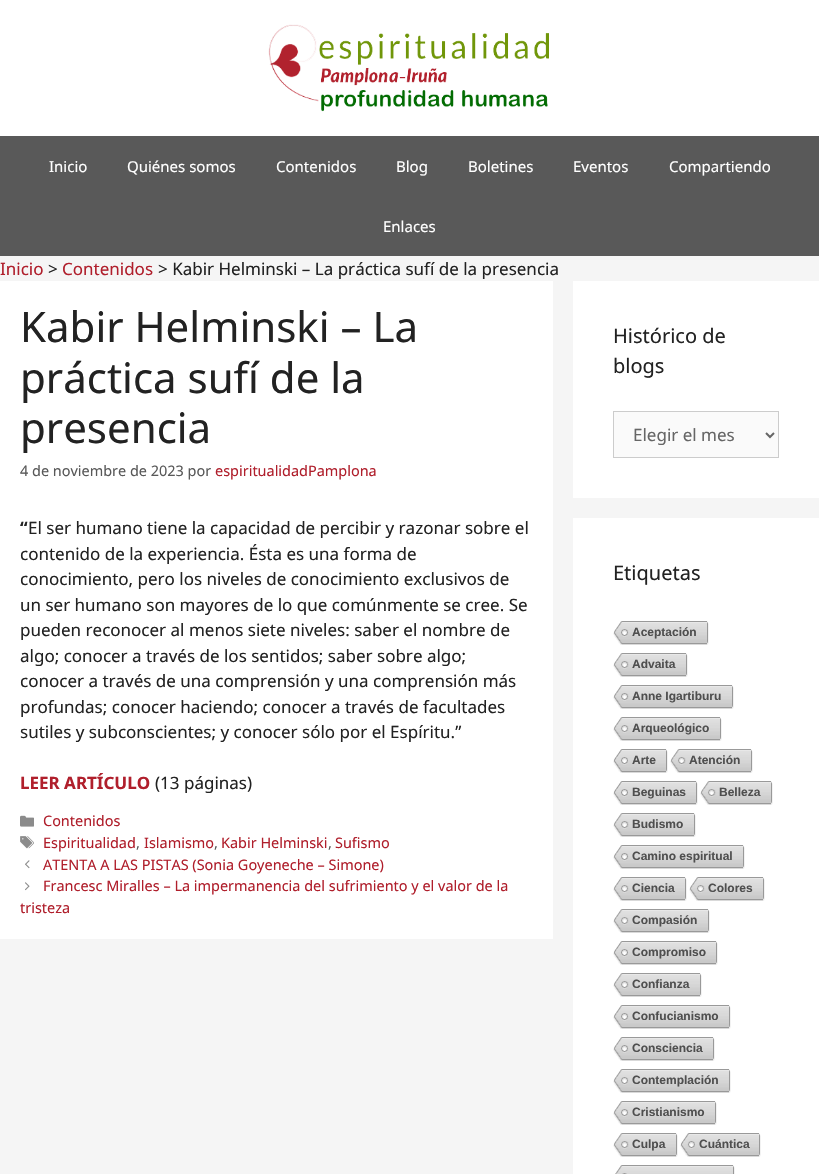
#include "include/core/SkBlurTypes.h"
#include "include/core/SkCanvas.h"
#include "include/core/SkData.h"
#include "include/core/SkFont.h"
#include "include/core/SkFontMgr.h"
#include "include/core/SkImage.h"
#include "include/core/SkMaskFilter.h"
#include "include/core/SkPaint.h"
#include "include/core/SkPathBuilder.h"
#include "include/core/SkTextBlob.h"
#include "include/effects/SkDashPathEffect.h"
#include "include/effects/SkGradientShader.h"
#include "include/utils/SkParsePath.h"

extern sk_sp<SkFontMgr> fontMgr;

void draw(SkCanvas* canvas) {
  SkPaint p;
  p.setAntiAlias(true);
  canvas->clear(SkColorSetRGB(245, 245, 245));
  p.setColor(SK_ColorWHITE);
  canvas->drawRect(SkRect::MakeLTRB(0, 0, 819, 136), p);
  canvas->drawImageRect(SkImages::DeferredFromEncodedData(SkData::MakeFromFileName("images/1.png")), SkRect::MakeLTRB(268, 24, 549, 112), SkSamplingOptions());
  p.setColor(SkColorSetRGB(89, 89, 89));
  canvas->drawRect(SkRect::MakeLTRB(0, 136, 819, 256), p);
  p.setColor(SK_ColorWHITE);
  canvas->drawRect(SkRect::MakeLTRB(0, 281, 553, 939), p);
  canvas->drawImageRect(SkImages::DeferredFromEncodedData(SkData::MakeFromFileName("images/2.png")), SkRect::MakeLTRB(20, 815, 34, 827), SkSamplingOptions());
  canvas->drawImageRect(SkImages::DeferredFromEncodedData(SkData::MakeFromFileName("images/3.png")), SkRect::MakeLTRB(20, 836, 34, 849), SkSamplingOptions());
  canvas->drawImageRect(SkImages::DeferredFromEncodedData(SkData::MakeFromFileName("images/4.png")), SkRect::MakeLTRB(25, 860, 30, 869), SkSamplingOptions());
  canvas->drawImageRect(SkImages::DeferredFromEncodedData(SkData::MakeFromFileName("images/5.png")), SkRect::MakeLTRB(25, 882, 30, 891), SkSamplingOptions());
  canvas->drawRect(SkRect::MakeLTRB(573, 281, 819, 498), p);
  p.setColor(SkColorSetRGB(250, 250, 250));
  canvas->drawRect(SkRect::MakeLTRB(613.5f, 411.5f, 778.5f, 457.5f), p);
  p.setStyle(SkPaint::kStroke_Style);
  p.setStrokeWidth(1);
  p.setColor(SkColorSetRGB(204, 204, 204));
  canvas->drawRect(SkRect::MakeLTRB(613.5f, 411.5f, 778.5f, 457.5f), p);
  p.setStrokeWidth(2);
  p.setColor(SkColorSetRGB(102, 102, 102));
  canvas->drawPath(SkPathBuilder().moveTo(766, 433).lineTo(770, 437).lineTo(774, 433).detach(), p);
  p.setStyle(SkPaint::kFill_Style);
  p.setColor(SK_ColorWHITE);
  canvas->drawRect(SkRect::MakeLTRB(573, 518, 819, 1174), p);
  canvas->drawImageRect(SkImages::DeferredFromEncodedData(SkData::MakeFromFileName("images/6.png")), SkRect::MakeLTRB(613, 621, 707, 645), SkSamplingOptions());
  canvas->drawImageRect(SkImages::DeferredFromEncodedData(SkData::MakeFromFileName("images/7.png")), SkRect::MakeLTRB(707, 621, 709, 645), SkSamplingOptions());
  canvas->drawImageRect(SkImages::DeferredFromEncodedData(SkData::MakeFromFileName("images/8.png")), SkRect::MakeLTRB(613, 653, 686, 677), SkSamplingOptions());
  canvas->drawImageRect(SkImages::DeferredFromEncodedData(SkData::MakeFromFileName("images/7.png")), SkRect::MakeLTRB(686, 653, 688, 677), SkSamplingOptions());
  canvas->drawImageRect(SkImages::DeferredFromEncodedData(SkData::MakeFromFileName("images/9.png")), SkRect::MakeLTRB(613, 685, 732, 709), SkSamplingOptions());
  canvas->drawImageRect(SkImages::DeferredFromEncodedData(SkData::MakeFromFileName("images/7.png")), SkRect::MakeLTRB(732, 685, 734, 709), SkSamplingOptions());
  canvas->drawImageRect(SkImages::DeferredFromEncodedData(SkData::MakeFromFileName("images/10.png")), SkRect::MakeLTRB(613, 717, 720, 741), SkSamplingOptions());
  canvas->drawImageRect(SkImages::DeferredFromEncodedData(SkData::MakeFromFileName("images/7.png")), SkRect::MakeLTRB(720, 717, 722, 741), SkSamplingOptions());
  canvas->drawImageRect(SkImages::DeferredFromEncodedData(SkData::MakeFromFileName("images/11.png")), SkRect::MakeLTRB(613, 749, 666, 773), SkSamplingOptions());
  canvas->drawImageRect(SkImages::DeferredFromEncodedData(SkData::MakeFromFileName("images/7.png")), SkRect::MakeLTRB(666, 749, 668, 773), SkSamplingOptions());
  canvas->drawImageRect(SkImages::DeferredFromEncodedData(SkData::MakeFromFileName("images/12.png")), SkRect::MakeLTRB(670, 749, 751, 773), SkSamplingOptions());
  canvas->drawImageRect(SkImages::DeferredFromEncodedData(SkData::MakeFromFileName("images/7.png")), SkRect::MakeLTRB(751, 749, 753, 773), SkSamplingOptions());
  canvas->drawImageRect(SkImages::DeferredFromEncodedData(SkData::MakeFromFileName("images/13.png")), SkRect::MakeLTRB(613, 781, 696, 805), SkSamplingOptions());
  canvas->drawImageRect(SkImages::DeferredFromEncodedData(SkData::MakeFromFileName("images/7.png")), SkRect::MakeLTRB(696, 781, 698, 805), SkSamplingOptions());
  canvas->drawImageRect(SkImages::DeferredFromEncodedData(SkData::MakeFromFileName("images/14.png")), SkRect::MakeLTRB(700, 781, 771, 805), SkSamplingOptions());
  canvas->drawImageRect(SkImages::DeferredFromEncodedData(SkData::MakeFromFileName("images/7.png")), SkRect::MakeLTRB(771, 781, 773, 805), SkSamplingOptions());
  canvas->drawImageRect(SkImages::DeferredFromEncodedData(SkData::MakeFromFileName("images/12.png")), SkRect::MakeLTRB(613, 813, 694, 837), SkSamplingOptions());
  canvas->drawImageRect(SkImages::DeferredFromEncodedData(SkData::MakeFromFileName("images/7.png")), SkRect::MakeLTRB(694, 813, 696, 837), SkSamplingOptions());
  canvas->drawImageRect(SkImages::DeferredFromEncodedData(SkData::MakeFromFileName("images/15.png")), SkRect::MakeLTRB(613, 845, 743, 869), SkSamplingOptions());
  canvas->drawImageRect(SkImages::DeferredFromEncodedData(SkData::MakeFromFileName("images/7.png")), SkRect::MakeLTRB(743, 845, 745, 869), SkSamplingOptions());
  canvas->drawImageRect(SkImages::DeferredFromEncodedData(SkData::MakeFromFileName("images/16.png")), SkRect::MakeLTRB(613, 877, 685, 901), SkSamplingOptions());
  canvas->drawImageRect(SkImages::DeferredFromEncodedData(SkData::MakeFromFileName("images/7.png")), SkRect::MakeLTRB(685, 877, 687, 901), SkSamplingOptions());
  canvas->drawImageRect(SkImages::DeferredFromEncodedData(SkData::MakeFromFileName("images/17.png")), SkRect::MakeLTRB(689, 877, 763, 901), SkSamplingOptions());
  canvas->drawImageRect(SkImages::DeferredFromEncodedData(SkData::MakeFromFileName("images/7.png")), SkRect::MakeLTRB(763, 877, 765, 901), SkSamplingOptions());
  canvas->drawImageRect(SkImages::DeferredFromEncodedData(SkData::MakeFromFileName("images/18.png")), SkRect::MakeLTRB(613, 909, 708, 933), SkSamplingOptions());
  canvas->drawImageRect(SkImages::DeferredFromEncodedData(SkData::MakeFromFileName("images/7.png")), SkRect::MakeLTRB(708, 909, 710, 933), SkSamplingOptions());
  canvas->drawImageRect(SkImages::DeferredFromEncodedData(SkData::MakeFromFileName("images/19.png")), SkRect::MakeLTRB(613, 941, 716, 965), SkSamplingOptions());
  canvas->drawImageRect(SkImages::DeferredFromEncodedData(SkData::MakeFromFileName("images/7.png")), SkRect::MakeLTRB(716, 941, 718, 965), SkSamplingOptions());
  canvas->drawImageRect(SkImages::DeferredFromEncodedData(SkData::MakeFromFileName("images/20.png")), SkRect::MakeLTRB(613, 973, 700, 997), SkSamplingOptions());
  canvas->drawImageRect(SkImages::DeferredFromEncodedData(SkData::MakeFromFileName("images/7.png")), SkRect::MakeLTRB(700, 973, 702, 997), SkSamplingOptions());
  canvas->drawImageRect(SkImages::DeferredFromEncodedData(SkData::MakeFromFileName("images/21.png")), SkRect::MakeLTRB(613, 1005, 729, 1029), SkSamplingOptions());
  canvas->drawImageRect(SkImages::DeferredFromEncodedData(SkData::MakeFromFileName("images/7.png")), SkRect::MakeLTRB(729, 1005, 731, 1029), SkSamplingOptions());
  canvas->drawImageRect(SkImages::DeferredFromEncodedData(SkData::MakeFromFileName("images/22.png")), SkRect::MakeLTRB(613, 1037, 713, 1061), SkSamplingOptions());
  canvas->drawImageRect(SkImages::DeferredFromEncodedData(SkData::MakeFromFileName("images/7.png")), SkRect::MakeLTRB(713, 1037, 715, 1061), SkSamplingOptions());
  canvas->drawImageRect(SkImages::DeferredFromEncodedData(SkData::MakeFromFileName("images/21.png")), SkRect::MakeLTRB(613, 1069, 729, 1093), SkSamplingOptions());
  canvas->drawImageRect(SkImages::DeferredFromEncodedData(SkData::MakeFromFileName("images/7.png")), SkRect::MakeLTRB(729, 1069, 731, 1093), SkSamplingOptions());
  canvas->drawImageRect(SkImages::DeferredFromEncodedData(SkData::MakeFromFileName("images/23.png")), SkRect::MakeLTRB(613, 1101, 715, 1125), SkSamplingOptions());
  canvas->drawImageRect(SkImages::DeferredFromEncodedData(SkData::MakeFromFileName("images/7.png")), SkRect::MakeLTRB(715, 1101, 717, 1125), SkSamplingOptions());
  canvas->drawImageRect(SkImages::DeferredFromEncodedData(SkData::MakeFromFileName("images/24.png")), SkRect::MakeLTRB(613, 1133, 676, 1157), SkSamplingOptions());
  canvas->drawImageRect(SkImages::DeferredFromEncodedData(SkData::MakeFromFileName("images/7.png")), SkRect::MakeLTRB(676, 1133, 678, 1157), SkSamplingOptions());
  canvas->drawImageRect(SkImages::DeferredFromEncodedData(SkData::MakeFromFileName("images/25.png")), SkRect::MakeLTRB(680, 1133, 759, 1157), SkSamplingOptions());
  canvas->drawImageRect(SkImages::DeferredFromEncodedData(SkData::MakeFromFileName("images/7.png")), SkRect::MakeLTRB(759, 1133, 761, 1157), SkSamplingOptions());
  canvas->drawImageRect(SkImages::DeferredFromEncodedData(SkData::MakeFromFileName("images/26.png")), SkRect::MakeLTRB(615, 1165, 733, 1174), SkSamplingOptions());
  canvas->drawImageRect(SkImages::DeferredFromEncodedData(SkData::MakeFromFileName("images/27.png")), SkRect::MakeLTRB(733, 1165, 735, 1174), SkSamplingOptions());
  SkFont font1(fontMgr->matchFamilyStyle("Noto Sans", SkFontStyle::Normal()), 15);
  font1.setSubpixel(true);
  canvas->drawString("Inicio", 49, 172, font1, p);
  canvas->drawString("Quiénes somos", 127, 172, font1, p);
  canvas->drawString("Contenidos", 276, 172, font1, p);
  canvas->drawString("Blog", 396, 172, font1, p);
  canvas->drawString("Boletines", 468, 172, font1, p);
  canvas->drawString("Eventos", 573, 172, font1, p);
  canvas->drawString("Compartiendo", 669, 172, font1, p);
  canvas->drawString("Enlaces", 383, 232, font1, p);
  SkFont font2(fontMgr->matchFamilyStyle("Noto Sans", SkFontStyle::Normal()), 17);
  font2.setSubpixel(true);
  p.setColor(SkColorSetRGB(176, 31, 44));
  canvas->drawString("Inicio", 0, 275, font2, p);
  p.setColor(SkColorSetRGB(34, 34, 34));
  canvas->drawString(">", 48, 275, font2, p);
  p.setColor(SkColorSetRGB(176, 31, 44));
  canvas->drawString("Contenidos", 62, 275, font2, p);
  p.setColor(SkColorSetRGB(34, 34, 34));
  canvas->drawString("> Kabir Helminski – La práctica sufí de la presencia", 158, 275, font2, p);
  SkFont font3(fontMgr->matchFamilyStyle("Noto Sans", SkFontStyle::Normal()), 42);
  font3.setSubpixel(true);
  canvas->drawString("Kabir Helminski – La", 20, 342, font3, p);
  canvas->drawString("práctica sufí de la", 20, 393, font3, p);
  canvas->drawString("presencia", 20, 443, font3, p);
  SkFont font4(fontMgr->matchFamilyStyle("Noto Sans", SkFontStyle::Normal()), 14.45f);
  font4.setSubpixel(true);
  p.setColor(SkColorSetRGB(89, 89, 89));
  canvas->drawString("4 de noviembre de 2023 por", 20, 476, font4, p);
  p.setColor(SkColorSetRGB(176, 31, 44));
  canvas->drawString("espiritualidadPamplona", 215, 476, font4, p);
  SkFont font5(fontMgr->matchFamilyStyle("Noto Sans", SkFontStyle::Bold()), 17);
  font5.setSubpixel(true);
  p.setColor(SkColorSetRGB(34, 34, 34));
  canvas->drawString("“", 20, 534, font5, p);
  canvas->drawString("El ser humano tiene la capacidad de percibir y razonar sobre el", 28, 534, font2, p);
  canvas->drawString("contenido de la experiencia. Ésta es una forma de", 20, 560, font2, p);
  canvas->drawString("conocimiento, pero los niveles de conocimiento exclusivos de", 20, 585, font2, p);
  canvas->drawString("un ser humano son mayores de lo que comúnmente se cree. Se", 20, 611, font2, p);
  canvas->drawString("pueden reconocer al menos siete niveles: saber el nombre de", 20, 636, font2, p);
  canvas->drawString("algo; conocer a través de los sentidos; saber sobre algo;", 20, 662, font2, p);
  canvas->drawString("conocer a través de una comprensión y una comprensión más", 20, 687, font2, p);
  canvas->drawString("profundas; conocer haciendo; conocer a través de facultades", 20, 713, font2, p);
  canvas->drawString("sutiles y subconscientes; y conocer sólo por el Espíritu.”", 20, 738, font2, p);
  p.setColor(SkColorSetRGB(176, 31, 44));
  canvas->drawString("LEER ARTÍCULO", 20, 789, font5, p);
  p.setColor(SkColorSetRGB(34, 34, 34));
  canvas->drawString("(13 páginas)", 155, 789, font2, p);
  p.setColor(SkColorSetRGB(176, 31, 44));
  canvas->drawString("Contenidos", 43, 826, font4, p);
  canvas->drawString("Espiritualidad", 43, 848, font4, p);
  p.setColor(SkColorSetRGB(89, 89, 89));
  canvas->drawString(",", 136, 848, font4, p);
  p.setColor(SkColorSetRGB(176, 31, 44));
  canvas->drawString("Islamismo", 144, 848, font4, p);
  p.setColor(SkColorSetRGB(89, 89, 89));
  canvas->drawString(",", 214, 848, font4, p);
  p.setColor(SkColorSetRGB(176, 31, 44));
  canvas->drawString("Kabir Helminski", 221, 848, font4, p);
  p.setColor(SkColorSetRGB(89, 89, 89));
  canvas->drawString(",", 328, 848, font4, p);
  p.setColor(SkColorSetRGB(176, 31, 44));
  canvas->drawString("Sufismo", 335, 848, font4, p);
  canvas->drawString("ATENTA A LAS PISTAS (Sonia Goyeneche – Simone)", 43, 870, font4, p);
  canvas->drawString("Francesc Miralles – La impermanencia del sufrimiento y el valor de la", 43, 891, font4, p);
  canvas->drawString("tristeza", 20, 913, font4, p);
  SkFont font6(fontMgr->matchFamilyStyle("Noto Sans", SkFontStyle::Normal()), 20);
  font6.setSubpixel(true);
  p.setColor(SkColorSetRGB(34, 34, 34));
  canvas->drawString("Histórico de", 613, 343, font6, p);
  canvas->drawString("blogs", 613, 373, font6, p);
  p.setColor(SkColorSetRGB(102, 102, 102));
  canvas->drawString("Elegir el mes", 633, 441, font2, p);
  p.setColor(SkColorSetRGB(34, 34, 34));
  canvas->drawString("Etiquetas", 613, 580, font6, p);
  SkFont font7(fontMgr->matchFamilyStyle("Liberation Sans", SkFontStyle::Bold()), 12);
  font7.setSubpixel(true);
  p.setColor(SkColorSetRGB(79, 79, 79));
  canvas->drawString("Aceptación", 632, 636, font7, p);
  canvas->drawString("Advaita", 632, 668, font7, p);
  canvas->drawString("Anne Igartiburu", 632, 700, font7, p);
  canvas->drawString("Arqueológico", 632, 732, font7, p);
  canvas->drawString("Arte", 632, 764, font7, p);
  canvas->drawString("Atención", 689, 764, font7, p);
  canvas->drawString("Beguinas", 632, 796, font7, p);
  canvas->drawString("Belleza", 719, 796, font7, p);
  canvas->drawString("Budismo", 632, 828, font7, p);
  canvas->drawString("Camino espiritual", 632, 860, font7, p);
  canvas->drawString("Ciencia", 632, 892, font7, p);
  canvas->drawString("Colores", 708, 892, font7, p);
  canvas->drawString("Compasión", 632, 924, font7, p);
  canvas->drawString("Compromiso", 632, 956, font7, p);
  canvas->drawString("Confianza", 632, 988, font7, p);
  canvas->drawString("Confucianismo", 632, 1020, font7, p);
  canvas->drawString("Consciencia", 632, 1052, font7, p);
  canvas->drawString("Contemplación", 632, 1084, font7, p);
  canvas->drawString("Cristianismo", 632, 1116, font7, p);
  canvas->drawString("Culpa", 632, 1148, font7, p);
  canvas->drawString("Cuántica", 699, 1148, font7, p);
}
